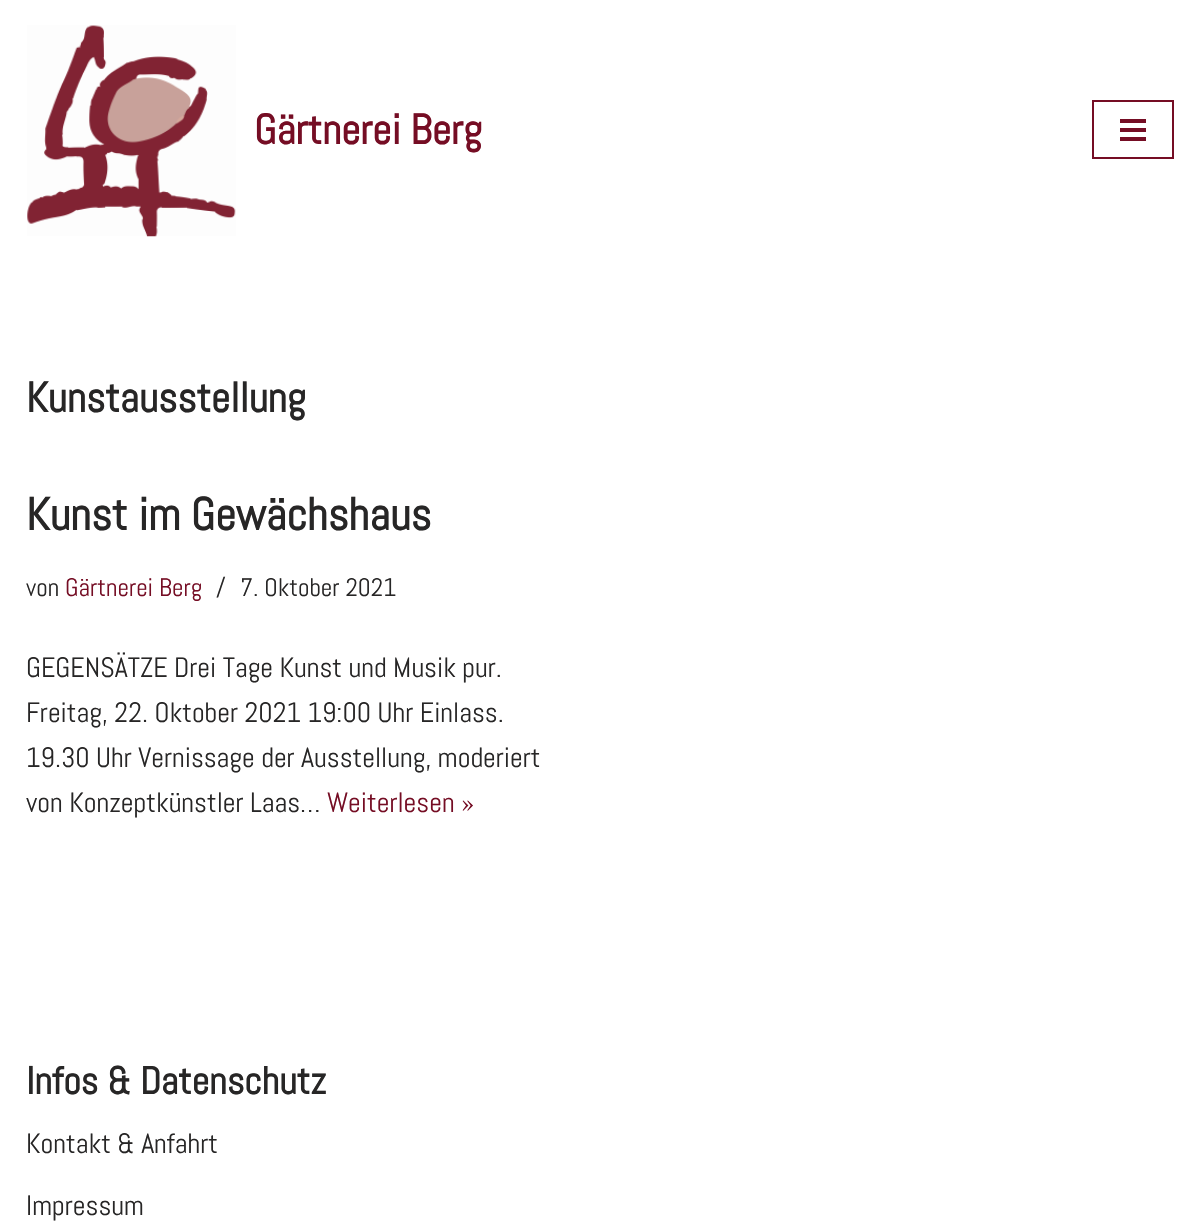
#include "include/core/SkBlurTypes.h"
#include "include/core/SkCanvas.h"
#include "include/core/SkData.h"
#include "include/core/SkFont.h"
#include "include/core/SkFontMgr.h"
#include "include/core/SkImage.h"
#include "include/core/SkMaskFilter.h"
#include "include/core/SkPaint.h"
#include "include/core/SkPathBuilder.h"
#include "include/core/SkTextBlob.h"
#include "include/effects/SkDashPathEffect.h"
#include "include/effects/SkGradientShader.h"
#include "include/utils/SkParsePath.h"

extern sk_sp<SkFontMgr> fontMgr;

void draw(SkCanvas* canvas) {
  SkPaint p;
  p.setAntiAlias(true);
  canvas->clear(SK_ColorWHITE);
  canvas->drawImageRect(SkImages::DeferredFromEncodedData(SkData::MakeFromFileName("images/1.png")), SkRect::MakeLTRB(27, 25, 236, 237), SkSamplingOptions());
  p.setStyle(SkPaint::kStroke_Style);
  p.setStrokeWidth(2);
  p.setColor(SkColorSetRGB(117, 13, 36));
  canvas->drawRect(SkRect::MakeLTRB(1093, 101, 1173, 158), p);
  p.setStyle(SkPaint::kFill_Style);
  canvas->drawRect(SkRect::MakeLTRB(1120, 119, 1146, 123), p);
  canvas->drawRect(SkRect::MakeLTRB(1120, 128, 1146, 132), p);
  canvas->drawRect(SkRect::MakeLTRB(1120, 137, 1146, 141), p);
  SkFont font1(fontMgr->matchFamilyStyle("Abel", SkFontStyle::Bold()), 42);
  font1.setSubpixel(true);
  canvas->drawString("Gärtnerei Berg", 254, 144, font1, p);
  p.setColor(SkColorSetRGB(39, 38, 38));
  canvas->drawString("Kunstausstellung", 26, 412, font1, p);
  SkFont font2(fontMgr->matchFamilyStyle("Abel", SkFontStyle::Bold()), 45.5f);
  font2.setSubpixel(true);
  canvas->drawString("Kunst im Gewächshaus", 26, 530, font2, p);
  SkFont font3(fontMgr->matchFamilyStyle("Abel", SkFontStyle::Normal()), 25.25f);
  font3.setSubpixel(true);
  canvas->drawString("von", 26, 596, font3, p);
  p.setColor(SkColorSetRGB(117, 13, 36));
  canvas->drawString("Gärtnerei Berg", 65, 596, font3, p);
  p.setColor(SkColorSetRGB(39, 38, 38));
  canvas->drawString("/", 216, 596, font3, p);
  canvas->drawString("7. Oktober 2021", 240, 596, font3, p);
  SkFont font4(fontMgr->matchFamilyStyle("Abel", SkFontStyle::Normal()), 28);
  font4.setSubpixel(true);
  canvas->drawString("GEGENSÄTZE Drei Tage Kunst und Musik pur.", 26, 677, font4, p);
  canvas->drawString("Freitag, 22. Oktober 2021 19:00 Uhr Einlass.", 26, 722, font4, p);
  canvas->drawString("19.30 Uhr Vernissage der Ausstellung, moderiert", 26, 767, font4, p);
  canvas->drawString("von Konzeptkünstler Laas…", 26, 812, font4, p);
  p.setColor(SkColorSetRGB(117, 13, 36));
  canvas->drawString("Weiterlesen »", 327, 812, font4, p);
  SkFont font5(fontMgr->matchFamilyStyle("Abel", SkFontStyle::Bold()), 38.5f);
  font5.setSubpixel(true);
  p.setColor(SkColorSetRGB(39, 38, 38));
  canvas->drawString("Infos & Datenschutz", 26, 1094, font5, p);
  canvas->drawString("Kontakt & Anfahrt", 26, 1153, font4, p);
  canvas->drawString("Impressum", 26, 1215, font4, p);
}
